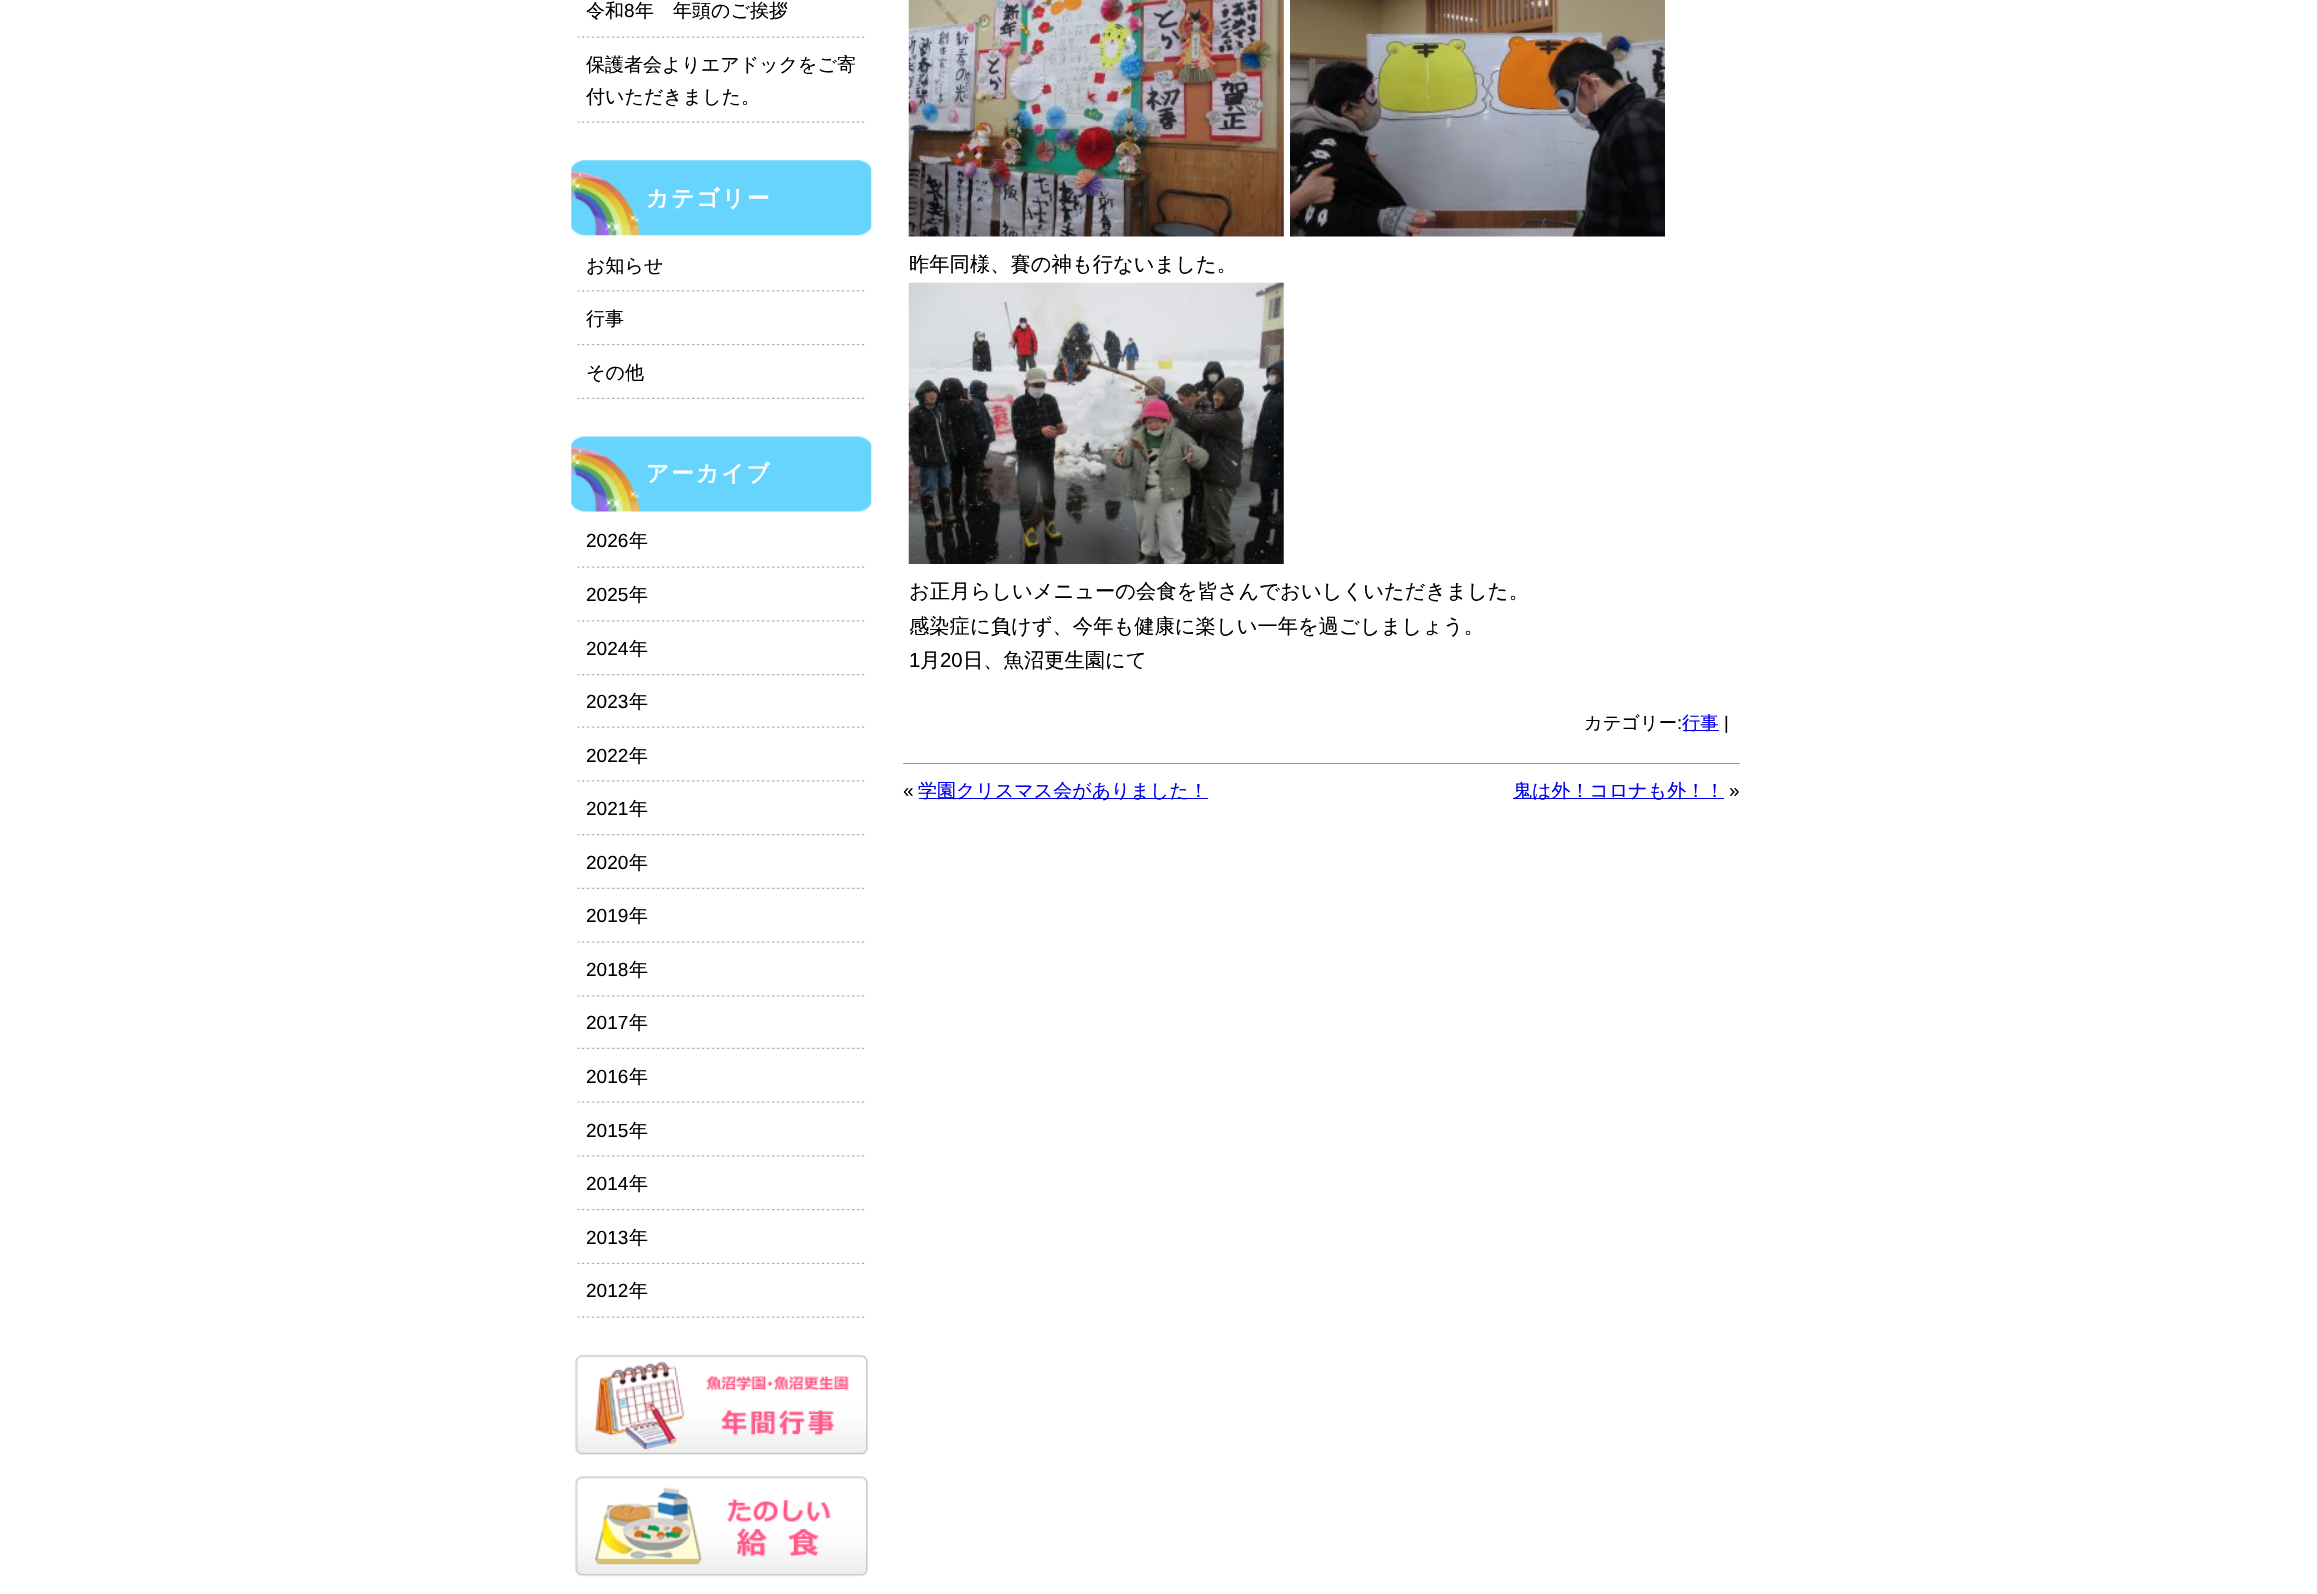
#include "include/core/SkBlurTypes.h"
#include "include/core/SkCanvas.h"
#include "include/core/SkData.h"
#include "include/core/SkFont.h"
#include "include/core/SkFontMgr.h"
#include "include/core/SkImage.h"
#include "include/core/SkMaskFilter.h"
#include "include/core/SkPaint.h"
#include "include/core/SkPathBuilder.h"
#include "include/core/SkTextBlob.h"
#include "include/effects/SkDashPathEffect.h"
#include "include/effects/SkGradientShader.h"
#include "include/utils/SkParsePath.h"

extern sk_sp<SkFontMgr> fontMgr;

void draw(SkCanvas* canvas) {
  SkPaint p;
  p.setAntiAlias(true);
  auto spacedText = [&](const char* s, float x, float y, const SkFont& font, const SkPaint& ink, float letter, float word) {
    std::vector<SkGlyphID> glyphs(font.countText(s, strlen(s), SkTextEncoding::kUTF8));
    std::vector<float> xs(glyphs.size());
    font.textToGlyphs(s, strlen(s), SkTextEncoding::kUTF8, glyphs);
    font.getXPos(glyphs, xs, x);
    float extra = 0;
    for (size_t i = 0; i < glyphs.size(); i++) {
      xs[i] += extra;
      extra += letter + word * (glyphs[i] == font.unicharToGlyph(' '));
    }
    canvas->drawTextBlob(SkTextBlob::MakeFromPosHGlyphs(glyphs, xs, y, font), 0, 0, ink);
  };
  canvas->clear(SK_ColorWHITE);
  canvas->drawImageRect(SkImages::DeferredFromEncodedData(SkData::MakeFromFileName("images/1.png")), SkRect::MakeLTRB(577, 36, 865, 38), SkSamplingOptions());
  canvas->drawImageRect(SkImages::DeferredFromEncodedData(SkData::MakeFromFileName("images/1.png")), SkRect::MakeLTRB(577, 121, 865, 123), SkSamplingOptions());
  canvas->drawImageRect(SkImages::DeferredFromEncodedData(SkData::MakeFromFileName("images/2.png")), SkRect::MakeLTRB(571, 160, 872, 236), SkSamplingOptions());
  canvas->drawImageRect(SkImages::DeferredFromEncodedData(SkData::MakeFromFileName("images/3.png")), SkRect::MakeLTRB(577, 290, 865, 292), SkSamplingOptions());
  canvas->drawImageRect(SkImages::DeferredFromEncodedData(SkData::MakeFromFileName("images/4.png")), SkRect::MakeLTRB(577, 344, 865, 346), SkSamplingOptions());
  canvas->drawImageRect(SkImages::DeferredFromEncodedData(SkData::MakeFromFileName("images/5.png")), SkRect::MakeLTRB(577, 397, 865, 399), SkSamplingOptions());
  canvas->drawImageRect(SkImages::DeferredFromEncodedData(SkData::MakeFromFileName("images/6.png")), SkRect::MakeLTRB(571, 436, 872, 512), SkSamplingOptions());
  canvas->drawImageRect(SkImages::DeferredFromEncodedData(SkData::MakeFromFileName("images/1.png")), SkRect::MakeLTRB(577, 566, 865, 568), SkSamplingOptions());
  canvas->drawImageRect(SkImages::DeferredFromEncodedData(SkData::MakeFromFileName("images/3.png")), SkRect::MakeLTRB(577, 620, 865, 622), SkSamplingOptions());
  canvas->drawImageRect(SkImages::DeferredFromEncodedData(SkData::MakeFromFileName("images/4.png")), SkRect::MakeLTRB(577, 674, 865, 676), SkSamplingOptions());
  canvas->drawImageRect(SkImages::DeferredFromEncodedData(SkData::MakeFromFileName("images/1.png")), SkRect::MakeLTRB(577, 726, 865, 728), SkSamplingOptions());
  canvas->drawImageRect(SkImages::DeferredFromEncodedData(SkData::MakeFromFileName("images/3.png")), SkRect::MakeLTRB(577, 780, 865, 782), SkSamplingOptions());
  canvas->drawImageRect(SkImages::DeferredFromEncodedData(SkData::MakeFromFileName("images/4.png")), SkRect::MakeLTRB(577, 834, 865, 836), SkSamplingOptions());
  canvas->drawImageRect(SkImages::DeferredFromEncodedData(SkData::MakeFromFileName("images/5.png")), SkRect::MakeLTRB(577, 887, 865, 889), SkSamplingOptions());
  canvas->drawImageRect(SkImages::DeferredFromEncodedData(SkData::MakeFromFileName("images/1.png")), SkRect::MakeLTRB(577, 941, 865, 943), SkSamplingOptions());
  canvas->drawImageRect(SkImages::DeferredFromEncodedData(SkData::MakeFromFileName("images/3.png")), SkRect::MakeLTRB(577, 995, 865, 997), SkSamplingOptions());
  canvas->drawImageRect(SkImages::DeferredFromEncodedData(SkData::MakeFromFileName("images/5.png")), SkRect::MakeLTRB(577, 1047, 865, 1049), SkSamplingOptions());
  canvas->drawImageRect(SkImages::DeferredFromEncodedData(SkData::MakeFromFileName("images/1.png")), SkRect::MakeLTRB(577, 1101, 865, 1103), SkSamplingOptions());
  canvas->drawImageRect(SkImages::DeferredFromEncodedData(SkData::MakeFromFileName("images/3.png")), SkRect::MakeLTRB(577, 1155, 865, 1157), SkSamplingOptions());
  canvas->drawImageRect(SkImages::DeferredFromEncodedData(SkData::MakeFromFileName("images/4.png")), SkRect::MakeLTRB(577, 1209, 865, 1211), SkSamplingOptions());
  canvas->drawImageRect(SkImages::DeferredFromEncodedData(SkData::MakeFromFileName("images/5.png")), SkRect::MakeLTRB(577, 1262, 865, 1264), SkSamplingOptions());
  canvas->drawImageRect(SkImages::DeferredFromEncodedData(SkData::MakeFromFileName("images/1.png")), SkRect::MakeLTRB(577, 1316, 865, 1318), SkSamplingOptions());
  canvas->drawImageRect(SkImages::DeferredFromEncodedData(SkData::MakeFromFileName("images/7.png")), SkRect::MakeLTRB(575, 1355, 868, 1455), SkSamplingOptions());
  canvas->drawImageRect(SkImages::DeferredFromEncodedData(SkData::MakeFromFileName("images/8.png")), SkRect::MakeLTRB(575, 1476, 868, 1577), SkSamplingOptions());
  canvas->drawImageRect(SkImages::DeferredFromEncodedData(SkData::MakeFromFileName("images/9.png")), SkRect::MakeLTRB(908, 0, 1284, 237), SkSamplingOptions());
  canvas->drawImageRect(SkImages::DeferredFromEncodedData(SkData::MakeFromFileName("images/10.png")), SkRect::MakeLTRB(1290, 0, 1665, 237), SkSamplingOptions());
  canvas->drawImageRect(SkImages::DeferredFromEncodedData(SkData::MakeFromFileName("images/11.png")), SkRect::MakeLTRB(908, 282, 1284, 564), SkSamplingOptions());
  p.setColor(SkColorSetRGB(0, 0, 238));
  canvas->drawRect(SkRect::MakeLTRB(1683, 730, 1719, 731), p);
  p.setColor(SkColorSetRGB(153, 153, 153));
  canvas->drawRect(SkRect::MakeLTRB(903, 763, 1740, 764), p);
  p.setColor(SkColorSetRGB(0, 0, 238));
  canvas->drawRect(SkRect::MakeLTRB(919, 798, 1208, 799), p);
  canvas->drawRect(SkRect::MakeLTRB(1513, 798, 1724, 799), p);
  SkFont font1(fontMgr->matchFamilyStyle("WenQuanYi Zen Hei", SkFontStyle(500, SkFontStyle::kNormal_Width, SkFontStyle::kUpright_Slant)), 19);
  font1.setSubpixel(true);
  p.setColor(SK_ColorBLACK);
  canvas->drawString("令和", 586, 17, font1, p);
  SkFont font2(fontMgr->matchFamilyStyle("Liberation Sans", SkFontStyle::Normal()), 19);
  font2.setSubpixel(true);
  canvas->drawString("8", 624, 17, font2, p);
  canvas->drawString("年　年頭のご挨拶", 635, 17, font1, p);
  canvas->drawString("保護者会よりエアドックをご寄", 586, 71, font1, p);
  canvas->drawString("付いただきました。", 586, 103, font1, p);
  SkFont font3(fontMgr->matchFamilyStyle("WenQuanYi Zen Hei", SkFontStyle::Bold()), 22.5f);
  font3.setSubpixel(true);
  p.setColor(SK_ColorWHITE);
  spacedText("カテゴリー", 646, 206, font3, p, 2.25f, 0);
  p.setColor(SK_ColorBLACK);
  canvas->drawString("お知らせ", 586, 272, font1, p);
  canvas->drawString("行事", 586, 325, font1, p);
  canvas->drawString("その他", 586, 379, font1, p);
  p.setColor(SK_ColorWHITE);
  spacedText("アーカイブ", 646, 481, font3, p, 2.25f, 0);
  p.setColor(SK_ColorBLACK);
  canvas->drawString("2026", 586, 547, font2, p);
  canvas->drawString("年", 629, 547, font1, p);
  canvas->drawString("2025", 586, 601, font2, p);
  canvas->drawString("年", 629, 601, font1, p);
  canvas->drawString("2024", 586, 655, font2, p);
  canvas->drawString("年", 629, 655, font1, p);
  canvas->drawString("2023", 586, 708, font2, p);
  canvas->drawString("年", 629, 708, font1, p);
  canvas->drawString("2022", 586, 762, font2, p);
  canvas->drawString("年", 629, 762, font1, p);
  canvas->drawString("2021", 586, 815, font2, p);
  canvas->drawString("年", 629, 815, font1, p);
  canvas->drawString("2020", 586, 869, font2, p);
  canvas->drawString("年", 629, 869, font1, p);
  canvas->drawString("2019", 586, 922, font2, p);
  canvas->drawString("年", 629, 922, font1, p);
  canvas->drawString("2018", 586, 976, font2, p);
  canvas->drawString("年", 629, 976, font1, p);
  canvas->drawString("2017", 586, 1029, font2, p);
  canvas->drawString("年", 629, 1029, font1, p);
  canvas->drawString("2016", 586, 1083, font2, p);
  canvas->drawString("年", 629, 1083, font1, p);
  canvas->drawString("2015", 586, 1137, font2, p);
  canvas->drawString("年", 629, 1137, font1, p);
  canvas->drawString("2014", 586, 1190, font2, p);
  canvas->drawString("年", 629, 1190, font1, p);
  canvas->drawString("2013", 586, 1244, font2, p);
  canvas->drawString("年", 629, 1244, font1, p);
  canvas->drawString("2012", 586, 1297, font2, p);
  canvas->drawString("年", 629, 1297, font1, p);
  SkFont font4(fontMgr->matchFamilyStyle("WenQuanYi Zen Hei", SkFontStyle(500, SkFontStyle::kNormal_Width, SkFontStyle::kUpright_Slant)), 20.3f);
  font4.setSubpixel(true);
  canvas->drawString("昨年同様、賽の神も行ないました。", 909, 271, font4, p);
  canvas->drawString("お正月らしいメニューの会食を皆さんでおいしくいただきました。", 909, 598, font4, p);
  canvas->drawString("感染症に負けず、今年も健康に楽しい一年を過ごしましょう。", 909, 633, font4, p);
  SkFont font5(fontMgr->matchFamilyStyle("Liberation Sans", SkFontStyle::Normal()), 20.3f);
  font5.setSubpixel(true);
  canvas->drawString("1", 909, 667, font5, p);
  canvas->drawString("月", 920, 667, font4, p);
  canvas->drawString("20", 940, 667, font5, p);
  canvas->drawString("日、魚沼更生園にて", 963, 667, font4, p);
  SkFont font6(fontMgr->matchFamilyStyle("WenQuanYi Zen Hei", SkFontStyle(500, SkFontStyle::kNormal_Width, SkFontStyle::kUpright_Slant)), 18.25f);
  font6.setSubpixel(true);
  canvas->drawString("カテゴリー", 1584, 729, font6, p);
  SkFont font7(fontMgr->matchFamilyStyle("Liberation Sans", SkFontStyle::Normal()), 18.25f);
  font7.setSubpixel(true);
  canvas->drawString(":", 1677, 729, font7, p);
  p.setColor(SkColorSetRGB(0, 0, 238));
  canvas->drawString("行事", 1682, 729, font6, p);
  p.setColor(SK_ColorBLACK);
  canvas->drawString("|", 1724, 729, font7, p);
  canvas->drawString("«", 903, 797, font2, p);
  p.setColor(SkColorSetRGB(0, 0, 238));
  canvas->drawString("学園クリスマス会がありました！", 918, 797, font1, p);
  canvas->drawString("鬼は外！コロナも外！！", 1513, 797, font1, p);
  p.setColor(SK_ColorBLACK);
  canvas->drawString("»", 1729, 797, font2, p);
}
